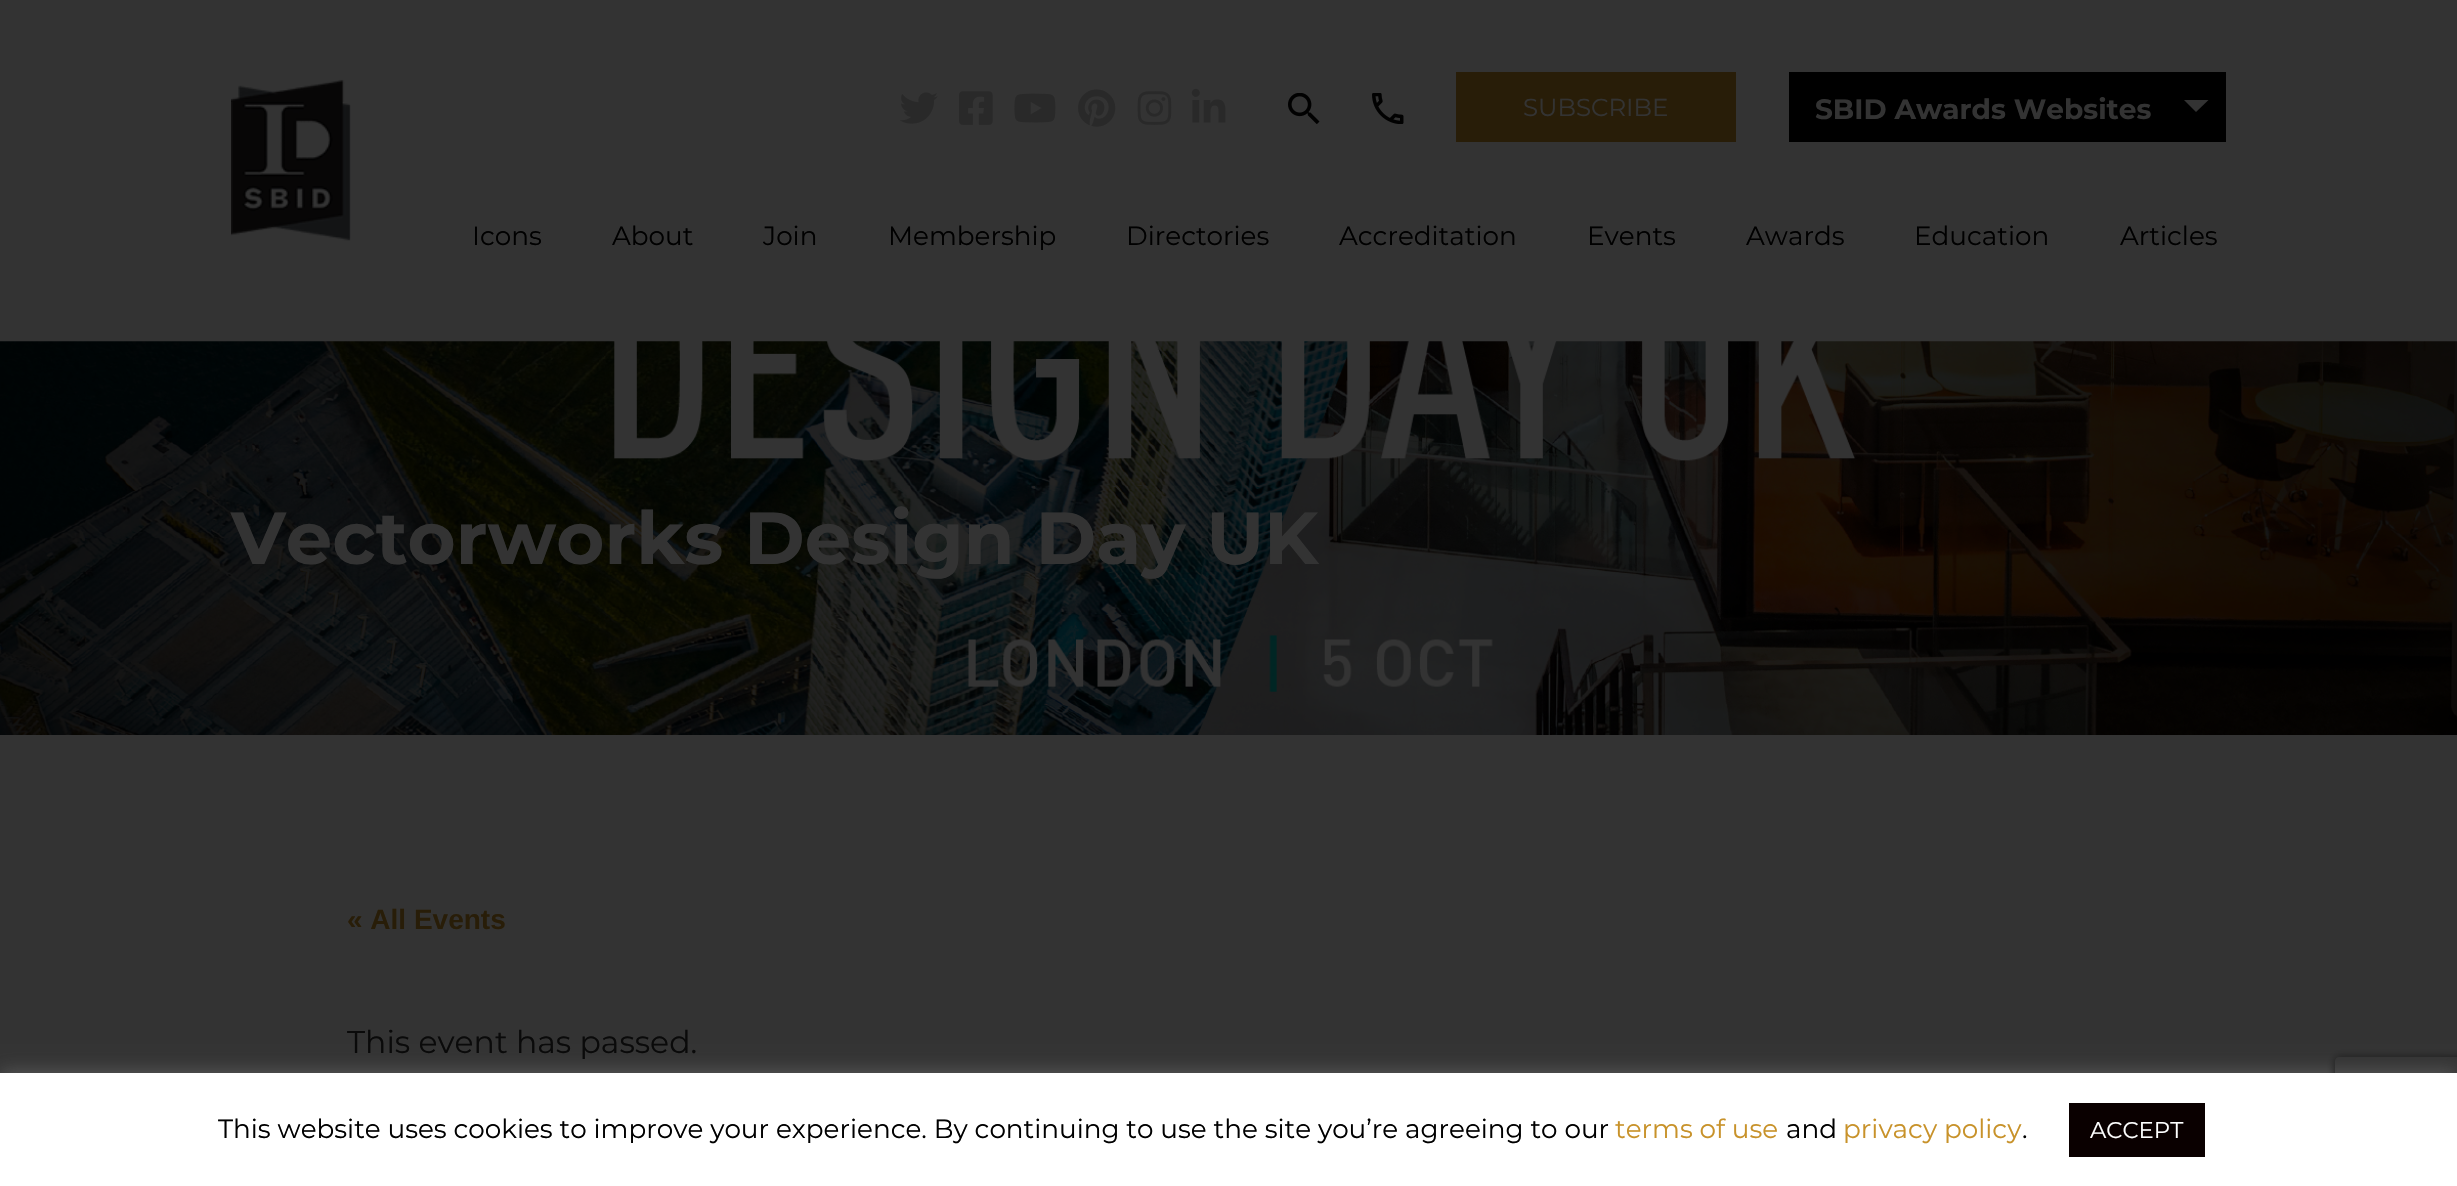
#include "include/core/SkBlurTypes.h"
#include "include/core/SkCanvas.h"
#include "include/core/SkData.h"
#include "include/core/SkFont.h"
#include "include/core/SkFontMgr.h"
#include "include/core/SkImage.h"
#include "include/core/SkMaskFilter.h"
#include "include/core/SkPaint.h"
#include "include/core/SkPathBuilder.h"
#include "include/core/SkTextBlob.h"
#include "include/effects/SkDashPathEffect.h"
#include "include/effects/SkGradientShader.h"
#include "include/utils/SkParsePath.h"

extern sk_sp<SkFontMgr> fontMgr;

void draw(SkCanvas* canvas) {
  SkPaint p;
  p.setAntiAlias(true);
  canvas->clear(SkColorSetRGB(51, 51, 51));
  canvas->drawImageRect(SkImages::DeferredFromEncodedData(SkData::MakeFromFileName("images/1.png")), SkRect::MakeLTRB(231, 79, 351, 241), SkSamplingOptions());
  canvas->drawImageRect(SkImages::DeferredFromEncodedData(SkData::MakeFromFileName("images/2.png")), SkRect::MakeLTRB(900, 92, 938, 124), SkSamplingOptions());
  canvas->drawImageRect(SkImages::DeferredFromEncodedData(SkData::MakeFromFileName("images/3.png")), SkRect::MakeLTRB(959, 91, 993, 125), SkSamplingOptions());
  canvas->drawImageRect(SkImages::DeferredFromEncodedData(SkData::MakeFromFileName("images/4.png")), SkRect::MakeLTRB(1014, 93, 1056, 123), SkSamplingOptions());
  canvas->drawImageRect(SkImages::DeferredFromEncodedData(SkData::MakeFromFileName("images/5.png")), SkRect::MakeLTRB(1078, 89, 1116, 127), SkSamplingOptions());
  canvas->drawImageRect(SkImages::DeferredFromEncodedData(SkData::MakeFromFileName("images/6.png")), SkRect::MakeLTRB(1137, 91, 1172, 125), SkSamplingOptions());
  canvas->drawImageRect(SkImages::DeferredFromEncodedData(SkData::MakeFromFileName("images/7.png")), SkRect::MakeLTRB(1191, 88, 1226, 123), SkSamplingOptions());
  canvas->drawImageRect(SkImages::DeferredFromEncodedData(SkData::MakeFromFileName("images/8.png")), SkRect::MakeLTRB(1288, 93, 1320, 124), SkSamplingOptions());
  canvas->drawImageRect(SkImages::DeferredFromEncodedData(SkData::MakeFromFileName("images/9.png")), SkRect::MakeLTRB(1372, 93, 1404, 124), SkSamplingOptions());
  p.setColor(SkColorSetRGB(40, 29, 8));
  canvas->drawRect(SkRect::MakeLTRB(1456, 72, 1736, 142), p);
  p.setColor(SK_ColorBLACK);
  canvas->drawRect(SkRect::MakeLTRB(1789, 72, 2226, 142), p);
  p.setColor(SkColorSetRGB(51, 51, 51));
  canvas->drawPath(SkPathBuilder().moveTo(2184, 100).lineTo(2208.5f, 100).lineTo(2196, 112).close().detach(), p);
  canvas->drawImageRect(SkImages::DeferredFromEncodedData(SkData::MakeFromFileName("images/10.png")), SkRect::MakeLTRB(0, 341, 2457, 735), SkSamplingOptions());
  p.setColor(SkColorSetARGB(77, 172, 171, 171));
  p.setMaskFilter(SkMaskFilter::MakeBlur(kNormal_SkBlurStyle, 9));
  canvas->drawRect(SkRect::MakeLTRB(0, 1071, 2457, 1185), p);
  p.setMaskFilter(nullptr);
  canvas->save();
  canvas->clipPath(SkPathBuilder(SkPathFillType::kEvenOdd).moveTo(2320, 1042).lineTo(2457, 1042).lineTo(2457, 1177).lineTo(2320, 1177).close().moveTo(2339, 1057).lineTo(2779, 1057).cubicTo(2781, 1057, 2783, 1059, 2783, 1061).lineTo(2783, 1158).cubicTo(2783, 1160, 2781, 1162, 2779, 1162).lineTo(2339, 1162).cubicTo(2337, 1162, 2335, 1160, 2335, 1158).lineTo(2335, 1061).cubicTo(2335, 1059, 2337, 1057, 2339, 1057).close().detach(), true);
  p.setColor(SkColorSetRGB(26, 26, 26));
  p.setMaskFilter(SkMaskFilter::MakeBlur(kNormal_SkBlurStyle, 4.5f));
  canvas->drawRoundRect(SkRect::MakeLTRB(2335, 1057, 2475, 1162), 4, 4, p);
  p.setMaskFilter(nullptr);
  canvas->restore();
  p.setColor(SK_ColorWHITE);
  canvas->drawRect(SkRect::MakeLTRB(0, 1073, 2457, 1186), p);
  p.setColor(SkColorSetRGB(10, 0, 0));
  canvas->drawRect(SkRect::MakeLTRB(2069, 1103, 2205, 1157), p);
  SkFont font1(fontMgr->matchFamilyStyle("Montserrat", SkFontStyle::Normal()), 24.5f);
  font1.setSubpixel(true);
  p.setColor(SkColorSetRGB(51, 51, 51));
  canvas->drawString("SUBSCRIBE", 1523, 116, font1, p);
  SkFont font2(fontMgr->matchFamilyStyle("Montserrat", SkFontStyle::Bold()), 28);
  font2.setSubpixel(true);
  canvas->drawString("SBID Awards Websites", 1815, 119, font2, p);
  SkFont font3(fontMgr->matchFamilyStyle("Montserrat", SkFontStyle::Normal()), 26.25f);
  font3.setSubpixel(true);
  p.setColor(SK_ColorBLACK);
  canvas->drawString("Icons", 472, 245, font3, p);
  canvas->drawString("About", 612, 245, font3, p);
  canvas->drawString("Join", 763, 245, font3, p);
  canvas->drawString("Membership", 888, 245, font3, p);
  canvas->drawString("Directories", 1126, 245, font3, p);
  canvas->drawString("Accreditation", 1339, 245, font3, p);
  canvas->drawString("Events", 1587, 245, font3, p);
  canvas->drawString("Awards", 1746, 245, font3, p);
  canvas->drawString("Education", 1914, 245, font3, p);
  canvas->drawString("Articles", 2120, 245, font3, p);
  SkFont font4(fontMgr->matchFamilyStyle("Montserrat", SkFontStyle::Bold()), 73.5f);
  font4.setSubpixel(true);
  p.setColor(SkColorSetRGB(51, 51, 51));
  canvas->drawString("Vectorworks Design Day UK", 231, 564, font4, p);
  SkFont font5(fontMgr->matchFamilyStyle("Liberation Sans", SkFontStyle::Bold()), 28);
  font5.setSubpixel(true);
  p.setColor(SkColorSetRGB(40, 29, 8));
  canvas->drawString("« All Events", 347, 929, font5, p);
  SkFont font6(fontMgr->matchFamilyStyle("Montserrat", SkFontStyle::Normal()), 31.5f);
  font6.setSubpixel(true);
  p.setColor(SkColorSetRGB(10, 10, 10));
  canvas->drawString("This event has passed.", 347, 1053, font6, p);
  p.setColor(SK_ColorBLACK);
  canvas->drawString("This website uses cookies to improve your experience. By continuing to use the site you’re agreeing to our", 218, 1138, font3, p);
  p.setColor(SkColorSetRGB(200, 146, 42));
  canvas->drawString("terms of use", 1615, 1138, font3, p);
  p.setColor(SK_ColorBLACK);
  canvas->drawString("and", 1786, 1138, font3, p);
  p.setColor(SkColorSetRGB(200, 146, 42));
  canvas->drawString("privacy policy", 1843, 1138, font3, p);
  p.setColor(SK_ColorBLACK);
  canvas->drawString(".", 2022, 1138, font3, p);
  SkFont font7(fontMgr->matchFamilyStyle("Montserrat", SkFontStyle::Normal()), 22.75f);
  font7.setSubpixel(true);
  p.setColor(SK_ColorWHITE);
  canvas->drawString("ACCEPT", 2090, 1138, font7, p);
}
